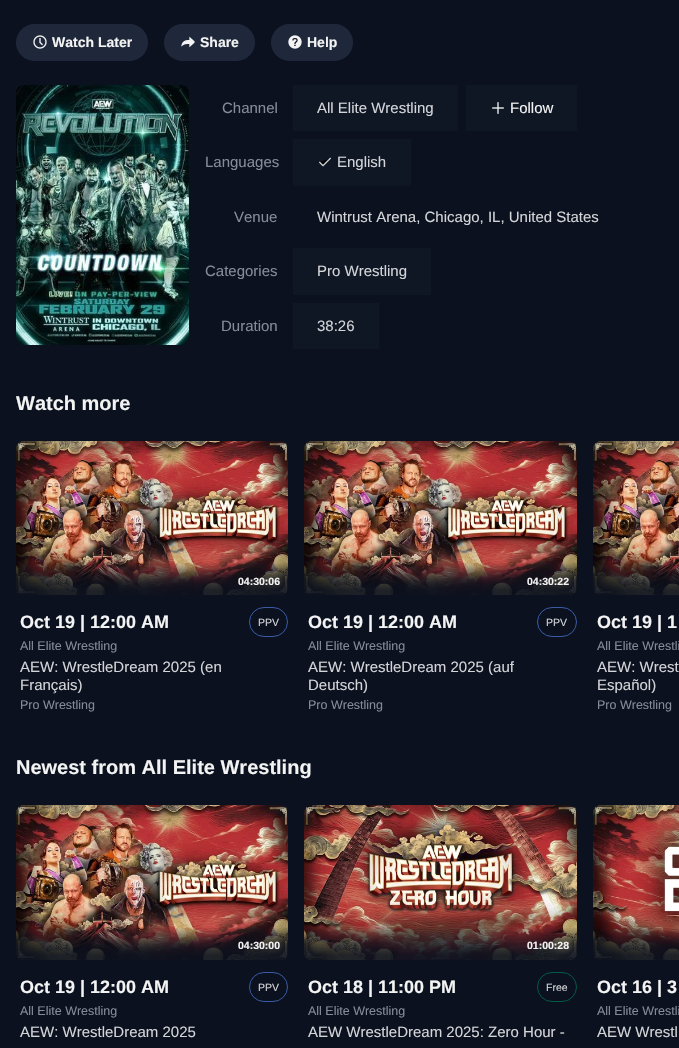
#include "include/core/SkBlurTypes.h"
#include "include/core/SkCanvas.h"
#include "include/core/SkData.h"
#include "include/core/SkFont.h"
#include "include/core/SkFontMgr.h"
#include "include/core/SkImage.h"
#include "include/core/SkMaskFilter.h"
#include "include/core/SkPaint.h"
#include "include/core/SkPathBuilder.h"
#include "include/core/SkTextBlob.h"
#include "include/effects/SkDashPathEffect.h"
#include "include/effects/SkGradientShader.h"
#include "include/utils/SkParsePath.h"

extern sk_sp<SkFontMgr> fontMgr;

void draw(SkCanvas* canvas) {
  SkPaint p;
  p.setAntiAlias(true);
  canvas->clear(SkColorSetRGB(11, 17, 30));
  p.setColor(SkColorSetRGB(31, 40, 58));
  canvas->drawRoundRect(SkRect::MakeLTRB(16, 24, 148, 61), 18.5f, 18.5f, p);
  canvas->drawImageRect(SkImages::DeferredFromEncodedData(SkData::MakeFromFileName("images/1.png")), SkRect::MakeLTRB(33, 35, 47, 49), SkSamplingOptions());
  canvas->drawRoundRect(SkRect::MakeLTRB(164, 24, 255, 61), 18.5f, 18.5f, p);
  canvas->drawImageRect(SkImages::DeferredFromEncodedData(SkData::MakeFromFileName("images/2.png")), SkRect::MakeLTRB(181, 36, 195, 48), SkSamplingOptions());
  canvas->drawRoundRect(SkRect::MakeLTRB(271, 24, 353, 61), 18.5f, 18.5f, p);
  canvas->drawImageRect(SkImages::DeferredFromEncodedData(SkData::MakeFromFileName("images/3.png")), SkRect::MakeLTRB(288, 35, 302, 49), SkSamplingOptions());
  canvas->drawImageRect(SkImages::DeferredFromEncodedData(SkData::MakeFromFileName("images/4.png")), SkRect::MakeLTRB(16, 85, 189, 345), SkSamplingOptions());
  p.setColor(SkColorSetRGB(15, 22, 36));
  canvas->drawRect(SkRect::MakeLTRB(293, 85, 458, 131), p);
  canvas->drawRect(SkRect::MakeLTRB(466, 85, 577, 131), p);
  canvas->drawImageRect(SkImages::DeferredFromEncodedData(SkData::MakeFromFileName("images/5.png")), SkRect::MakeLTRB(492, 102, 504, 114), SkSamplingOptions());
  canvas->drawRect(SkRect::MakeLTRB(293, 139, 411, 186), p);
  canvas->drawImageRect(SkImages::DeferredFromEncodedData(SkData::MakeFromFileName("images/6.png")), SkRect::MakeLTRB(319, 157, 331, 167), SkSamplingOptions());
  canvas->drawRect(SkRect::MakeLTRB(293, 248, 431, 295), p);
  canvas->drawRect(SkRect::MakeLTRB(293, 303, 379, 349), p);
  canvas->drawImageRect(SkImages::DeferredFromEncodedData(SkData::MakeFromFileName("images/7.png")), SkRect::MakeLTRB(16, 441, 288, 595), SkSamplingOptions());
  {
    const SkColor colors[] = {SkColorSetARGB(168, 11, 17, 30), SkColorSetARGB(0, 11, 17, 30)};
    const float stops[] = {0.03f, 0.21f};
    const SkPoint ends[] = {{152, 595}, {152, 441}};
    p.setShader(SkGradientShader::MakeLinear(ends, colors, stops, 2, SkTileMode::kClamp));
    p.setAlpha(255);
  }
  canvas->drawRoundRect(SkRect::MakeLTRB(16, 441, 288, 595), 8, 8, p);
  canvas->drawRoundRect(SkRect::MakeLTRB(16, 441, 288, 595), 8, 8, p);
  p.setStyle(SkPaint::kStroke_Style);
  p.setStrokeWidth(1);
  p.setShader(nullptr);
  p.setColor(SkColorSetRGB(57, 91, 167));
  canvas->drawRoundRect(SkRect::MakeLTRB(249.5f, 607.5f, 287.5f, 636.5f), 14.5f, 14.5f, p);
  canvas->drawImageRect(SkImages::DeferredFromEncodedData(SkData::MakeFromFileName("images/8.png")), SkRect::MakeLTRB(304, 441, 577, 595), SkSamplingOptions());
  p.setStyle(SkPaint::kFill_Style);
  {
    const SkColor colors[] = {SkColorSetARGB(168, 11, 17, 30), SkColorSetARGB(0, 11, 17, 30)};
    const float stops[] = {0.03f, 0.21f};
    const SkPoint ends[] = {{441, 595}, {441, 441}};
    p.setShader(SkGradientShader::MakeLinear(ends, colors, stops, 2, SkTileMode::kClamp));
    p.setAlpha(255);
  }
  canvas->drawRoundRect(SkRect::MakeLTRB(304, 441, 577, 595), 8, 8, p);
  canvas->drawRoundRect(SkRect::MakeLTRB(304, 441, 577, 595), 8, 8, p);
  p.setStyle(SkPaint::kStroke_Style);
  p.setShader(nullptr);
  p.setColor(SkColorSetRGB(57, 91, 167));
  canvas->drawRoundRect(SkRect::MakeLTRB(537.5f, 607.5f, 576.5f, 636.5f), 14.5f, 14.5f, p);
  canvas->drawImageRect(SkImages::DeferredFromEncodedData(SkData::MakeFromFileName("images/9.png")), SkRect::MakeLTRB(593, 441, 679, 595), SkSamplingOptions());
  p.setStyle(SkPaint::kFill_Style);
  {
    const SkColor colors[] = {SkColorSetARGB(168, 11, 17, 30), SkColorSetARGB(0, 11, 17, 30)};
    const float stops[] = {0.03f, 0.21f};
    const SkPoint ends[] = {{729, 595}, {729, 441}};
    p.setShader(SkGradientShader::MakeLinear(ends, colors, stops, 2, SkTileMode::kClamp));
    p.setAlpha(255);
  }
  canvas->drawPath(SkPathBuilder().moveTo(601, 441).lineTo(679, 441).lineTo(679, 595).lineTo(601, 595).cubicTo(596.5f, 595, 593, 591.5f, 593, 587).lineTo(593, 449).cubicTo(593, 444.5f, 596.5f, 441, 601, 441).close().detach(), p);
  canvas->drawPath(SkPathBuilder().moveTo(601, 441).lineTo(679, 441).lineTo(679, 595).lineTo(601, 595).cubicTo(596.5f, 595, 593, 591.5f, 593, 587).lineTo(593, 449).cubicTo(593, 444.5f, 596.5f, 441, 601, 441).close().detach(), p);
  canvas->drawImageRect(SkImages::DeferredFromEncodedData(SkData::MakeFromFileName("images/10.png")), SkRect::MakeLTRB(16, 805, 288, 960), SkSamplingOptions());
  {
    const SkColor colors[] = {SkColorSetARGB(168, 11, 17, 30), SkColorSetARGB(0, 11, 17, 30)};
    const float stops[] = {0.03f, 0.21f};
    const SkPoint ends[] = {{152, 960}, {152, 805}};
    p.setShader(SkGradientShader::MakeLinear(ends, colors, stops, 2, SkTileMode::kClamp));
    p.setAlpha(255);
  }
  canvas->drawRoundRect(SkRect::MakeLTRB(16, 805, 288, 960), 8, 8, p);
  canvas->drawRoundRect(SkRect::MakeLTRB(16, 805, 288, 960), 8, 8, p);
  p.setStyle(SkPaint::kStroke_Style);
  p.setShader(nullptr);
  p.setColor(SkColorSetRGB(57, 91, 167));
  canvas->drawRoundRect(SkRect::MakeLTRB(249.5f, 972.5f, 287.5f, 1001.5f), 14.5f, 14.5f, p);
  canvas->drawImageRect(SkImages::DeferredFromEncodedData(SkData::MakeFromFileName("images/11.png")), SkRect::MakeLTRB(304, 805, 577, 960), SkSamplingOptions());
  p.setStyle(SkPaint::kFill_Style);
  {
    const SkColor colors[] = {SkColorSetARGB(168, 11, 17, 30), SkColorSetARGB(0, 11, 17, 30)};
    const float stops[] = {0.03f, 0.21f};
    const SkPoint ends[] = {{441, 960}, {441, 805}};
    p.setShader(SkGradientShader::MakeLinear(ends, colors, stops, 2, SkTileMode::kClamp));
    p.setAlpha(255);
  }
  canvas->drawRoundRect(SkRect::MakeLTRB(304, 805, 577, 960), 8, 8, p);
  canvas->drawRoundRect(SkRect::MakeLTRB(304, 805, 577, 960), 8, 8, p);
  p.setStyle(SkPaint::kStroke_Style);
  p.setShader(nullptr);
  p.setColor(SkColorSetRGB(0, 90, 69));
  canvas->drawRoundRect(SkRect::MakeLTRB(537.5f, 972.5f, 576.5f, 1001.5f), 14.5f, 14.5f, p);
  canvas->drawImageRect(SkImages::DeferredFromEncodedData(SkData::MakeFromFileName("images/12.png")), SkRect::MakeLTRB(593, 805, 679, 960), SkSamplingOptions());
  p.setStyle(SkPaint::kFill_Style);
  {
    const SkColor colors[] = {SkColorSetARGB(168, 11, 17, 30), SkColorSetARGB(0, 11, 17, 30)};
    const float stops[] = {0.03f, 0.21f};
    const SkPoint ends[] = {{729, 960}, {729, 805}};
    p.setShader(SkGradientShader::MakeLinear(ends, colors, stops, 2, SkTileMode::kClamp));
    p.setAlpha(255);
  }
  canvas->drawPath(SkPathBuilder().moveTo(601, 805).lineTo(679, 805).lineTo(679, 960).lineTo(601, 960).cubicTo(596.5f, 960, 593, 956.5f, 593, 952).lineTo(593, 813).cubicTo(593, 808.5f, 596.5f, 805, 601, 805).close().detach(), p);
  canvas->drawPath(SkPathBuilder().moveTo(601, 805).lineTo(679, 805).lineTo(679, 960).lineTo(601, 960).cubicTo(596.5f, 960, 593, 956.5f, 593, 952).lineTo(593, 813).cubicTo(593, 808.5f, 596.5f, 805, 601, 805).close().detach(), p);
  SkFont font1(fontMgr->matchFamilyStyle("Liberation Sans", SkFontStyle::Bold()), 14);
  font1.setSubpixel(true);
  p.setShader(nullptr);
  p.setColor(SkColorSetRGB(243, 243, 243));
  canvas->drawString("Watch Later", 52, 47, font1, p);
  canvas->drawString("Share", 200, 47, font1, p);
  canvas->drawString("Help", 307, 47, font1, p);
  SkFont font2(fontMgr->matchFamilyStyle("Liberation Sans", SkFontStyle::Normal()), 15);
  font2.setSubpixel(true);
  p.setColor(SkColorSetRGB(132, 139, 154));
  canvas->drawString("Channel", 222, 113, font2, p);
  p.setColor(SkColorSetRGB(211, 213, 216));
  canvas->drawString("All Elite Wrestling", 317, 113, font2, p);
  p.setColor(SkColorSetRGB(243, 243, 243));
  canvas->drawString("Follow", 510, 113, font2, p);
  p.setColor(SkColorSetRGB(132, 139, 154));
  canvas->drawString("Languages", 205, 167, font2, p);
  p.setColor(SkColorSetRGB(211, 213, 216));
  canvas->drawString("English", 337, 167, font2, p);
  p.setColor(SkColorSetRGB(132, 139, 154));
  canvas->drawString("Venue", 234, 222, font2, p);
  p.setColor(SkColorSetRGB(211, 213, 216));
  canvas->drawString("Wintrust Arena, Chicago, IL, United States", 317, 222, font2, p);
  p.setColor(SkColorSetRGB(132, 139, 154));
  canvas->drawString("Categories", 205, 276, font2, p);
  p.setColor(SkColorSetRGB(211, 213, 216));
  canvas->drawString("Pro Wrestling", 317, 276, font2, p);
  p.setColor(SkColorSetRGB(132, 139, 154));
  canvas->drawString("Duration", 221, 331, font2, p);
  p.setColor(SkColorSetRGB(211, 213, 216));
  canvas->drawString("38:26", 317, 331, font2, p);
  SkFont font3(fontMgr->matchFamilyStyle("Liberation Sans", SkFontStyle::Bold()), 20);
  font3.setSubpixel(true);
  p.setColor(SkColorSetRGB(243, 243, 243));
  canvas->drawString("Watch more", 16, 410, font3, p);
  SkFont font4(fontMgr->matchFamilyStyle("Liberation Sans", SkFontStyle::Bold()), 10.5f);
  font4.setSubpixel(true);
  canvas->drawString("04:30:06", 238, 585, font4, p);
  SkFont font5(fontMgr->matchFamilyStyle("Liberation Sans", SkFontStyle::Bold()), 18);
  font5.setSubpixel(true);
  canvas->drawString("Oct 19 | 12:00 AM", 20, 628, font5, p);
  SkFont font6(fontMgr->matchFamilyStyle("Liberation Sans", SkFontStyle::Normal()), 10.5f);
  font6.setSubpixel(true);
  p.setColor(SkColorSetRGB(211, 213, 216));
  canvas->drawString("PPV", 258, 626, font6, p);
  SkFont font7(fontMgr->matchFamilyStyle("Liberation Sans", SkFontStyle::Normal()), 12.5f);
  font7.setSubpixel(true);
  p.setColor(SkColorSetRGB(132, 139, 154));
  canvas->drawString("All Elite Wrestling", 20, 650, font7, p);
  p.setColor(SkColorSetRGB(211, 213, 216));
  canvas->drawString("AEW: WrestleDream 2025 (en", 20, 672, font2, p);
  canvas->drawString("Français)", 20, 690, font2, p);
  p.setColor(SkColorSetRGB(132, 139, 154));
  canvas->drawString("Pro Wrestling", 20, 709, font7, p);
  p.setColor(SkColorSetRGB(243, 243, 243));
  canvas->drawString("04:30:22", 527, 585, font4, p);
  canvas->drawString("Oct 19 | 12:00 AM", 308, 628, font5, p);
  p.setColor(SkColorSetRGB(211, 213, 216));
  canvas->drawString("PPV", 546, 626, font6, p);
  p.setColor(SkColorSetRGB(132, 139, 154));
  canvas->drawString("All Elite Wrestling", 308, 650, font7, p);
  p.setColor(SkColorSetRGB(211, 213, 216));
  canvas->drawString("AEW: WrestleDream 2025 (auf", 308, 672, font2, p);
  canvas->drawString("Deutsch)", 308, 690, font2, p);
  p.setColor(SkColorSetRGB(132, 139, 154));
  canvas->drawString("Pro Wrestling", 308, 709, font7, p);
  p.setColor(SkColorSetRGB(243, 243, 243));
  canvas->drawString("Oct 19 | 1", 597, 628, font5, p);
  p.setColor(SkColorSetRGB(132, 139, 154));
  canvas->drawString("All Elite Wrestli", 597, 650, font7, p);
  p.setColor(SkColorSetRGB(211, 213, 216));
  canvas->drawString("AEW: Wrest", 597, 672, font2, p);
  canvas->drawString("Español)", 597, 690, font2, p);
  p.setColor(SkColorSetRGB(132, 139, 154));
  canvas->drawString("Pro Wrestling", 597, 709, font7, p);
  p.setColor(SkColorSetRGB(243, 243, 243));
  canvas->drawString("Newest from All Elite Wrestling", 16, 774, font3, p);
  canvas->drawString("04:30:00", 238, 949, font4, p);
  canvas->drawString("Oct 19 | 12:00 AM", 20, 993, font5, p);
  p.setColor(SkColorSetRGB(211, 213, 216));
  canvas->drawString("PPV", 258, 991, font6, p);
  p.setColor(SkColorSetRGB(132, 139, 154));
  canvas->drawString("All Elite Wrestling", 20, 1015, font7, p);
  p.setColor(SkColorSetRGB(211, 213, 216));
  canvas->drawString("AEW: WrestleDream 2025", 20, 1037, font2, p);
  p.setColor(SkColorSetRGB(243, 243, 243));
  canvas->drawString("01:00:28", 527, 949, font4, p);
  canvas->drawString("Oct 18 | 11:00 PM", 308, 993, font5, p);
  p.setColor(SkColorSetRGB(211, 213, 216));
  canvas->drawString("Free", 546, 991, font6, p);
  p.setColor(SkColorSetRGB(132, 139, 154));
  canvas->drawString("All Elite Wrestling", 308, 1015, font7, p);
  p.setColor(SkColorSetRGB(211, 213, 216));
  canvas->drawString("AEW WrestleDream 2025: Zero Hour -", 308, 1037, font2, p);
  p.setColor(SkColorSetRGB(243, 243, 243));
  canvas->drawString("Oct 16 | 3", 597, 993, font5, p);
  p.setColor(SkColorSetRGB(132, 139, 154));
  canvas->drawString("All Elite Wrestli", 597, 1015, font7, p);
  p.setColor(SkColorSetRGB(211, 213, 216));
  canvas->drawString("AEW Wrestl", 597, 1037, font2, p);
}
